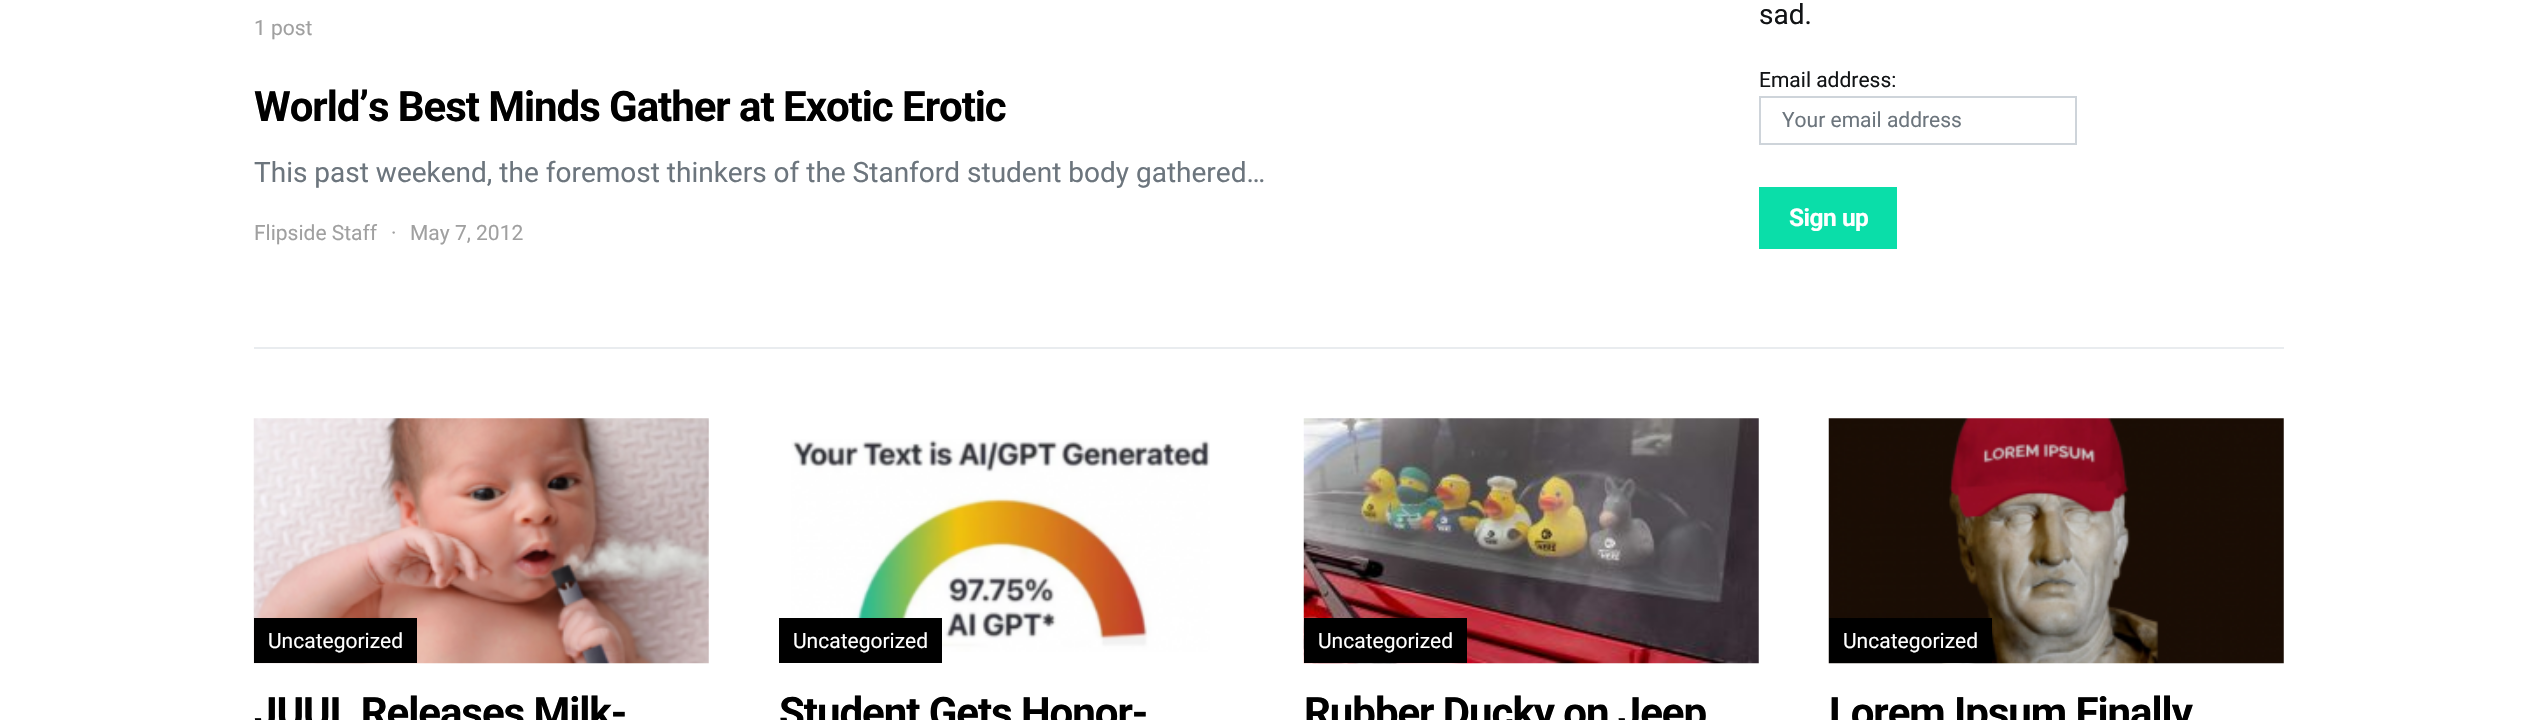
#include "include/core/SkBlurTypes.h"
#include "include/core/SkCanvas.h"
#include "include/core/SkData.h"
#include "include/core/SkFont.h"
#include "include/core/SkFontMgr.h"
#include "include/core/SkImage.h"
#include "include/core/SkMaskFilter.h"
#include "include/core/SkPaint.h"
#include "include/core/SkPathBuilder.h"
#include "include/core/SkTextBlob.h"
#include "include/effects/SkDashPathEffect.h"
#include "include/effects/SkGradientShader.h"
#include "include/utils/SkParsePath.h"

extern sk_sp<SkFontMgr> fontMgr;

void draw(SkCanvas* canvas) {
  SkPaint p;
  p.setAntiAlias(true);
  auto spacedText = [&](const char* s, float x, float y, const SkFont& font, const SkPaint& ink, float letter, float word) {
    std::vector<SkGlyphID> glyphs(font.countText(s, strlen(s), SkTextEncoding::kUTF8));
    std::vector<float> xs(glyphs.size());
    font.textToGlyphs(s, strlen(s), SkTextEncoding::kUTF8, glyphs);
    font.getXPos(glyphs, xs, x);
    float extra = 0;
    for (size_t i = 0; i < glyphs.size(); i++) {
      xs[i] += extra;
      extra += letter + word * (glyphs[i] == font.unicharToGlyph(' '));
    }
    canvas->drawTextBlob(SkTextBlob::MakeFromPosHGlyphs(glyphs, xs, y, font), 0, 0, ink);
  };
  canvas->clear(SK_ColorWHITE);
  p.setStyle(SkPaint::kStroke_Style);
  p.setStrokeWidth(2);
  p.setColor(SkColorSetRGB(206, 212, 218));
  canvas->drawRect(SkRect::MakeLTRB(1760, 97, 2076, 144), p);
  p.setStyle(SkPaint::kFill_Style);
  p.setColor(SkColorSetRGB(10, 222, 169));
  canvas->drawRect(SkRect::MakeLTRB(1759, 187, 1897, 249), p);
  p.setColor(SkColorSetRGB(233, 236, 239));
  canvas->drawRect(SkRect::MakeLTRB(254, 347, 2284, 349), p);
  canvas->drawImageRect(SkImages::DeferredFromEncodedData(SkData::MakeFromFileName("images/1.png")), SkRect::MakeLTRB(253, 418, 709, 664), SkSamplingOptions());
  p.setColor(SK_ColorBLACK);
  canvas->drawRect(SkRect::MakeLTRB(254, 618, 417, 663), p);
  canvas->drawImageRect(SkImages::DeferredFromEncodedData(SkData::MakeFromFileName("images/2.png")), SkRect::MakeLTRB(791, 439, 1210, 652), SkSamplingOptions());
  canvas->drawRect(SkRect::MakeLTRB(779, 618, 942, 663), p);
  canvas->drawImageRect(SkImages::DeferredFromEncodedData(SkData::MakeFromFileName("images/3.png")), SkRect::MakeLTRB(1303, 418, 1759, 664), SkSamplingOptions());
  canvas->drawRect(SkRect::MakeLTRB(1304, 618, 1467, 663), p);
  canvas->drawImageRect(SkImages::DeferredFromEncodedData(SkData::MakeFromFileName("images/4.png")), SkRect::MakeLTRB(1828, 418, 2284, 664), SkSamplingOptions());
  canvas->drawRect(SkRect::MakeLTRB(1829, 618, 1992, 663), p);
  SkFont font1(fontMgr->matchFamilyStyle("Roboto", SkFontStyle::Normal()), 21);
  font1.setSubpixel(true);
  p.setColor(SkColorSetRGB(160, 160, 160));
  canvas->drawString("1 post", 254, 35, font1, p);
  SkFont font2(fontMgr->matchFamilyStyle("Roboto", SkFontStyle::Bold()), 42);
  font2.setSubpixel(true);
  p.setColor(SK_ColorBLACK);
  spacedText("World’s Best Minds Gather at Exotic Erotic", 254, 121, font2, p, -1.05f, 0);
  SkFont font3(fontMgr->matchFamilyStyle("Roboto", SkFontStyle::Normal()), 28);
  font3.setSubpixel(true);
  p.setColor(SkColorSetRGB(108, 117, 125));
  canvas->drawString("This past weekend, the foremost thinkers of the Stanford student body gathered…", 254, 182, font3, p);
  p.setColor(SkColorSetRGB(160, 160, 160));
  canvas->drawString("Flipside Staff", 254, 240, font1, p);
  canvas->drawString("·", 391, 240, font1, p);
  canvas->drawString("May 7, 2012", 410, 240, font1, p);
  p.setColor(SkColorSetRGB(18, 20, 22));
  canvas->drawString("sad.", 1759, 24, font3, p);
  canvas->drawString("Email address:", 1759, 87, font1, p);
  p.setColor(SkColorSetRGB(108, 117, 125));
  canvas->drawString("Your email address", 1782, 127, font1, p);
  SkFont font4(fontMgr->matchFamilyStyle("Roboto", SkFontStyle::Bold()), 24.5f);
  font4.setSubpixel(true);
  p.setColor(SK_ColorWHITE);
  spacedText("Sign up", 1789, 226, font4, p, -0.5f, 0);
  canvas->drawString("Uncategorized", 268, 648, font1, p);
  p.setColor(SK_ColorBLACK);
  spacedText("JUUL Releases Milk-", 254, 727, font2, p, -1.05f, 0);
  p.setColor(SK_ColorWHITE);
  canvas->drawString("Uncategorized", 793, 648, font1, p);
  p.setColor(SK_ColorBLACK);
  spacedText("Student Gets Honor-", 779, 727, font2, p, -1.05f, 0);
  p.setColor(SK_ColorWHITE);
  canvas->drawString("Uncategorized", 1318, 648, font1, p);
  p.setColor(SK_ColorBLACK);
  spacedText("Rubber Ducky on Jeep", 1304, 727, font2, p, -1.05f, 0);
  p.setColor(SK_ColorWHITE);
  canvas->drawString("Uncategorized", 1843, 648, font1, p);
  p.setColor(SK_ColorBLACK);
  spacedText("Lorem Ipsum Finally", 1829, 727, font2, p, -1.05f, 0);
}
